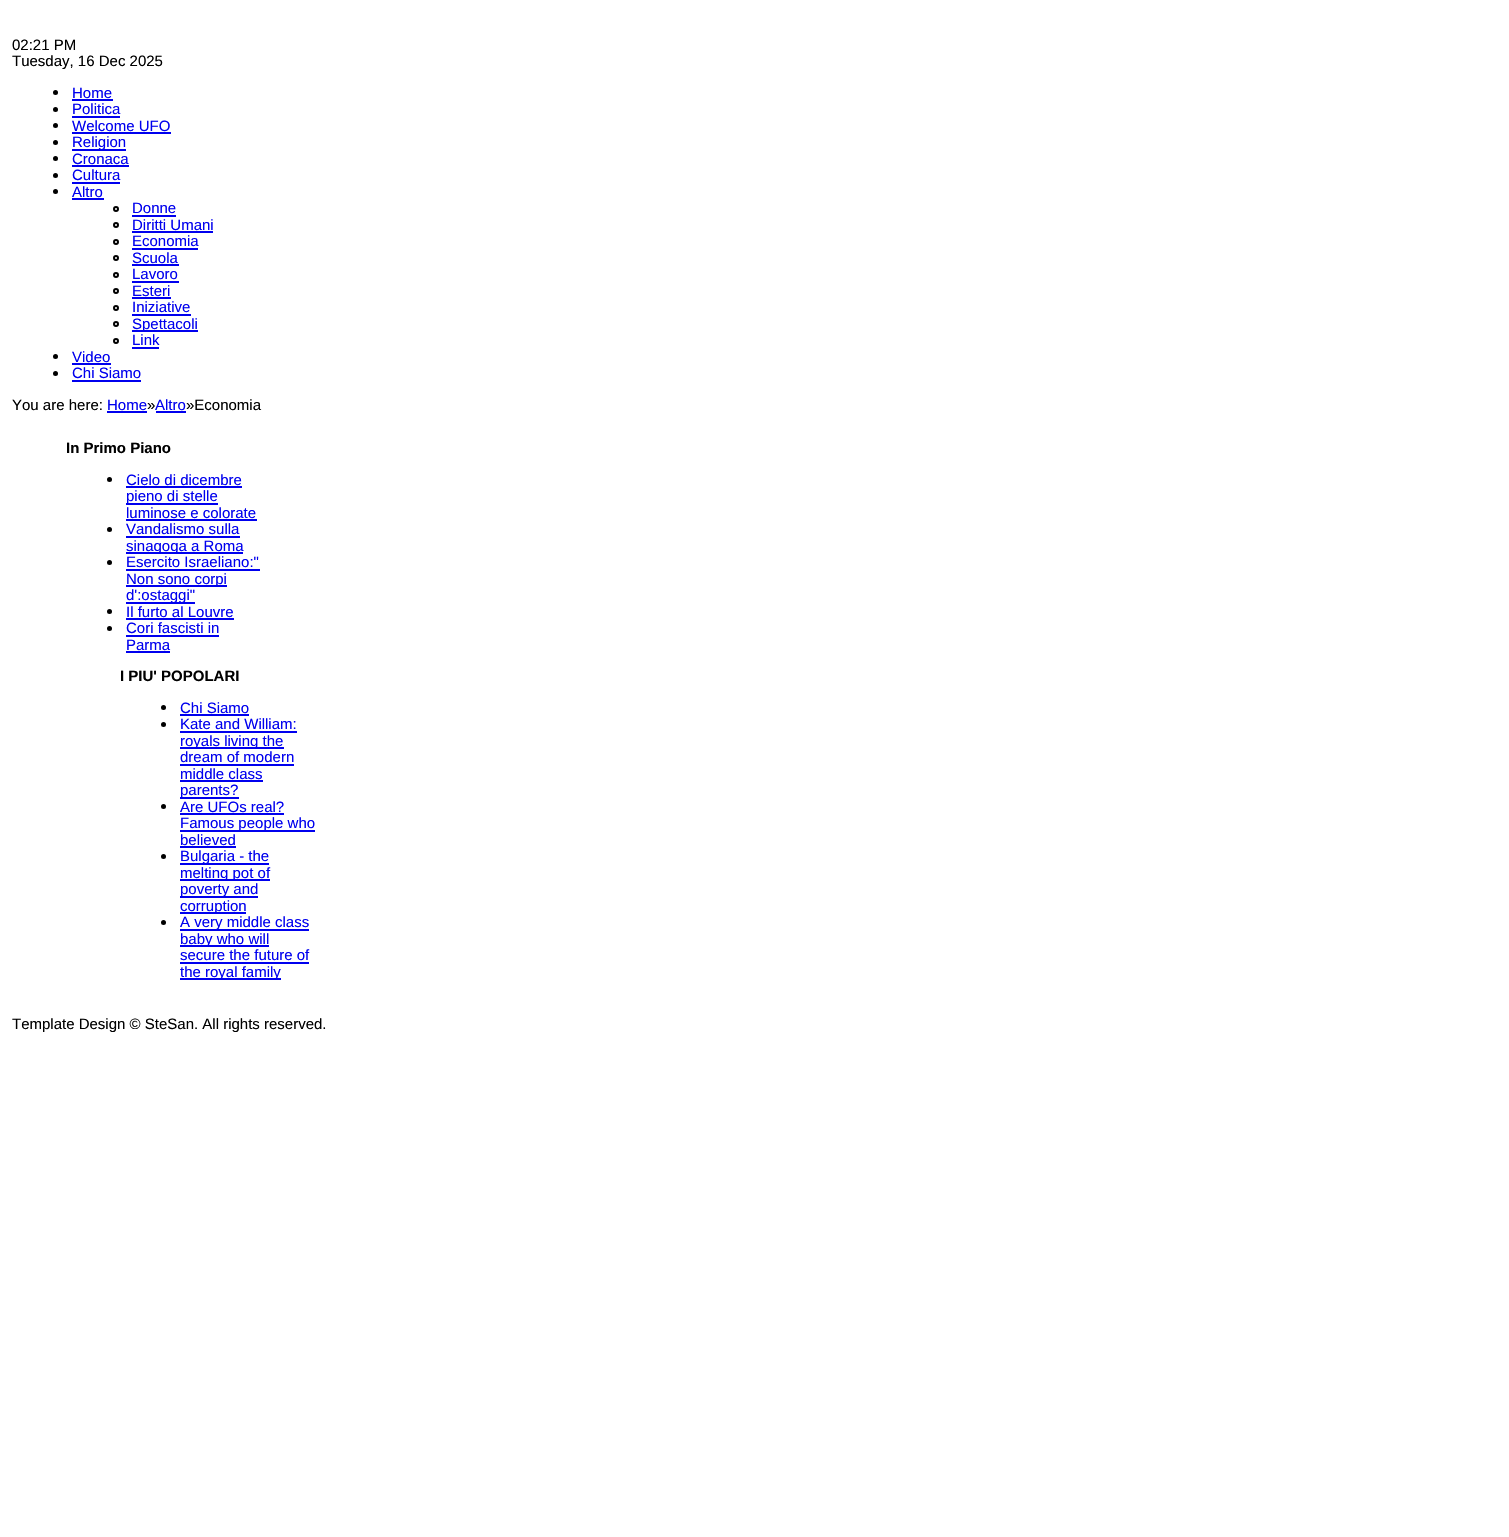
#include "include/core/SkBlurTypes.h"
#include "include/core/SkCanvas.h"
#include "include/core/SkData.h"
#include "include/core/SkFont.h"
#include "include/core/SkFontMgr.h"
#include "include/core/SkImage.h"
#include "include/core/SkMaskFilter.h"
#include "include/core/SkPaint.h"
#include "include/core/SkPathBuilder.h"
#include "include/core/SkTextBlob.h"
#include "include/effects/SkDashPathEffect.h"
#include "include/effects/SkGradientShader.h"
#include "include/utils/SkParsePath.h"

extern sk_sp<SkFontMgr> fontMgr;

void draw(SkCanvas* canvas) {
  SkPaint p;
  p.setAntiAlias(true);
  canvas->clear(SK_ColorWHITE);
  p.setColor(SK_ColorBLACK);
  canvas->drawCircle(55.5f, 92.5f, 2.5f, p);
  p.setColor(SkColorSetRGB(0, 0, 238));
  canvas->drawRect(SkRect::MakeLTRB(72, 99, 113, 101), p);
  p.setColor(SK_ColorBLACK);
  canvas->drawCircle(55.5f, 109.5f, 2.5f, p);
  p.setColor(SkColorSetRGB(0, 0, 238));
  canvas->drawRect(SkRect::MakeLTRB(72, 116, 120, 118), p);
  p.setColor(SK_ColorBLACK);
  canvas->drawCircle(55.5f, 125.5f, 2.5f, p);
  p.setColor(SkColorSetRGB(0, 0, 238));
  canvas->drawRect(SkRect::MakeLTRB(72, 132, 171, 134), p);
  p.setColor(SK_ColorBLACK);
  canvas->drawCircle(55.5f, 142.5f, 2.5f, p);
  p.setColor(SkColorSetRGB(0, 0, 238));
  canvas->drawRect(SkRect::MakeLTRB(72, 149, 126, 151), p);
  p.setColor(SK_ColorBLACK);
  canvas->drawCircle(55.5f, 158.5f, 2.5f, p);
  p.setColor(SkColorSetRGB(0, 0, 238));
  canvas->drawRect(SkRect::MakeLTRB(72, 165, 129, 167), p);
  p.setColor(SK_ColorBLACK);
  canvas->drawCircle(55.5f, 175.5f, 2.5f, p);
  p.setColor(SkColorSetRGB(0, 0, 238));
  canvas->drawRect(SkRect::MakeLTRB(72, 182, 120, 184), p);
  p.setColor(SK_ColorBLACK);
  canvas->drawCircle(55.5f, 191.5f, 2.5f, p);
  p.setColor(SkColorSetRGB(0, 0, 238));
  canvas->drawRect(SkRect::MakeLTRB(72, 198, 104, 200), p);
  p.setStyle(SkPaint::kStroke_Style);
  p.setStrokeWidth(2);
  p.setColor(SK_ColorBLACK);
  canvas->drawCircle(116, 209, 2, p);
  p.setStyle(SkPaint::kFill_Style);
  p.setColor(SkColorSetRGB(0, 0, 238));
  canvas->drawRect(SkRect::MakeLTRB(132, 215, 176, 217), p);
  p.setStyle(SkPaint::kStroke_Style);
  p.setColor(SK_ColorBLACK);
  canvas->drawCircle(116, 225, 2, p);
  p.setStyle(SkPaint::kFill_Style);
  p.setColor(SkColorSetRGB(0, 0, 238));
  canvas->drawRect(SkRect::MakeLTRB(132, 231, 213, 233), p);
  p.setStyle(SkPaint::kStroke_Style);
  p.setColor(SK_ColorBLACK);
  canvas->drawCircle(116, 242, 2, p);
  p.setStyle(SkPaint::kFill_Style);
  p.setColor(SkColorSetRGB(0, 0, 238));
  canvas->drawRect(SkRect::MakeLTRB(132, 248, 198, 250), p);
  p.setStyle(SkPaint::kStroke_Style);
  p.setColor(SK_ColorBLACK);
  canvas->drawCircle(116, 258, 2, p);
  p.setStyle(SkPaint::kFill_Style);
  p.setColor(SkColorSetRGB(0, 0, 238));
  canvas->drawRect(SkRect::MakeLTRB(132, 264, 179, 266), p);
  p.setStyle(SkPaint::kStroke_Style);
  p.setColor(SK_ColorBLACK);
  canvas->drawCircle(116, 275, 2, p);
  p.setStyle(SkPaint::kFill_Style);
  p.setColor(SkColorSetRGB(0, 0, 238));
  canvas->drawRect(SkRect::MakeLTRB(132, 281, 179, 283), p);
  p.setStyle(SkPaint::kStroke_Style);
  p.setColor(SK_ColorBLACK);
  canvas->drawCircle(116, 291, 2, p);
  p.setStyle(SkPaint::kFill_Style);
  p.setColor(SkColorSetRGB(0, 0, 238));
  canvas->drawRect(SkRect::MakeLTRB(132, 297, 171, 299), p);
  p.setStyle(SkPaint::kStroke_Style);
  p.setColor(SK_ColorBLACK);
  canvas->drawCircle(116, 308, 2, p);
  p.setStyle(SkPaint::kFill_Style);
  p.setColor(SkColorSetRGB(0, 0, 238));
  canvas->drawRect(SkRect::MakeLTRB(132, 314, 191, 316), p);
  p.setStyle(SkPaint::kStroke_Style);
  p.setColor(SK_ColorBLACK);
  canvas->drawCircle(116, 324, 2, p);
  p.setStyle(SkPaint::kFill_Style);
  p.setColor(SkColorSetRGB(0, 0, 238));
  canvas->drawRect(SkRect::MakeLTRB(132, 330, 198, 332), p);
  p.setStyle(SkPaint::kStroke_Style);
  p.setColor(SK_ColorBLACK);
  canvas->drawCircle(116, 341, 2, p);
  p.setStyle(SkPaint::kFill_Style);
  p.setColor(SkColorSetRGB(0, 0, 238));
  canvas->drawRect(SkRect::MakeLTRB(132, 347, 159, 349), p);
  p.setColor(SK_ColorBLACK);
  canvas->drawCircle(55.5f, 356.5f, 2.5f, p);
  p.setColor(SkColorSetRGB(0, 0, 238));
  canvas->drawRect(SkRect::MakeLTRB(72, 363, 111, 365), p);
  p.setColor(SK_ColorBLACK);
  canvas->drawCircle(55.5f, 373.5f, 2.5f, p);
  p.setColor(SkColorSetRGB(0, 0, 238));
  canvas->drawRect(SkRect::MakeLTRB(72, 380, 141, 382), p);
  canvas->drawRect(SkRect::MakeLTRB(107, 411, 147, 413), p);
  canvas->drawRect(SkRect::MakeLTRB(156, 411, 186, 413), p);
  p.setColor(SK_ColorBLACK);
  canvas->drawCircle(109.5f, 479.5f, 2.5f, p);
  p.setColor(SkColorSetRGB(0, 0, 238));
  canvas->drawRect(SkRect::MakeLTRB(126, 486, 242, 488), p);
  canvas->drawRect(SkRect::MakeLTRB(126, 503, 218, 505), p);
  canvas->drawRect(SkRect::MakeLTRB(126, 519, 257, 521), p);
  p.setColor(SK_ColorBLACK);
  canvas->drawCircle(109.5f, 529.5f, 2.5f, p);
  p.setColor(SkColorSetRGB(0, 0, 238));
  canvas->drawRect(SkRect::MakeLTRB(126, 536, 240, 538), p);
  canvas->drawRect(SkRect::MakeLTRB(126, 552, 243, 554), p);
  p.setColor(SK_ColorBLACK);
  canvas->drawCircle(109.5f, 562.5f, 2.5f, p);
  p.setColor(SkColorSetRGB(0, 0, 238));
  canvas->drawRect(SkRect::MakeLTRB(126, 569, 260, 571), p);
  canvas->drawRect(SkRect::MakeLTRB(126, 585, 227, 587), p);
  canvas->drawRect(SkRect::MakeLTRB(126, 602, 195, 604), p);
  p.setColor(SK_ColorBLACK);
  canvas->drawCircle(109.5f, 611.5f, 2.5f, p);
  p.setColor(SkColorSetRGB(0, 0, 238));
  canvas->drawRect(SkRect::MakeLTRB(126, 618, 234, 620), p);
  p.setColor(SK_ColorBLACK);
  canvas->drawCircle(109.5f, 628.5f, 2.5f, p);
  p.setColor(SkColorSetRGB(0, 0, 238));
  canvas->drawRect(SkRect::MakeLTRB(126, 635, 219, 637), p);
  canvas->drawRect(SkRect::MakeLTRB(126, 651, 170, 653), p);
  p.setColor(SK_ColorBLACK);
  canvas->drawCircle(163.5f, 707.5f, 2.5f, p);
  p.setColor(SkColorSetRGB(0, 0, 238));
  canvas->drawRect(SkRect::MakeLTRB(180, 714, 249, 716), p);
  p.setColor(SK_ColorBLACK);
  canvas->drawCircle(163.5f, 724.5f, 2.5f, p);
  p.setColor(SkColorSetRGB(0, 0, 238));
  canvas->drawRect(SkRect::MakeLTRB(180, 731, 297, 733), p);
  canvas->drawRect(SkRect::MakeLTRB(180, 747, 284, 749), p);
  canvas->drawRect(SkRect::MakeLTRB(180, 764, 294, 766), p);
  canvas->drawRect(SkRect::MakeLTRB(180, 780, 263, 782), p);
  canvas->drawRect(SkRect::MakeLTRB(180, 797, 239, 799), p);
  p.setColor(SK_ColorBLACK);
  canvas->drawCircle(163.5f, 806.5f, 2.5f, p);
  p.setColor(SkColorSetRGB(0, 0, 238));
  canvas->drawRect(SkRect::MakeLTRB(180, 813, 284, 815), p);
  canvas->drawRect(SkRect::MakeLTRB(180, 830, 315, 832), p);
  canvas->drawRect(SkRect::MakeLTRB(180, 846, 236, 848), p);
  p.setColor(SK_ColorBLACK);
  canvas->drawCircle(163.5f, 856.5f, 2.5f, p);
  p.setColor(SkColorSetRGB(0, 0, 238));
  canvas->drawRect(SkRect::MakeLTRB(180, 863, 269, 865), p);
  canvas->drawRect(SkRect::MakeLTRB(180, 879, 270, 881), p);
  canvas->drawRect(SkRect::MakeLTRB(180, 896, 258, 898), p);
  canvas->drawRect(SkRect::MakeLTRB(180, 912, 246, 914), p);
  p.setColor(SK_ColorBLACK);
  canvas->drawCircle(163.5f, 922.5f, 2.5f, p);
  p.setColor(SkColorSetRGB(0, 0, 238));
  canvas->drawRect(SkRect::MakeLTRB(180, 929, 309, 931), p);
  canvas->drawRect(SkRect::MakeLTRB(180, 945, 269, 947), p);
  canvas->drawRect(SkRect::MakeLTRB(180, 962, 309, 964), p);
  canvas->drawRect(SkRect::MakeLTRB(180, 978, 281, 980), p);
  SkFont font1(fontMgr->matchFamilyStyle("Liberation Sans", SkFontStyle::Normal()), 15);
  font1.setSubpixel(true);
  p.setColor(SK_ColorBLACK);
  canvas->drawString("02:21 PM", 12, 50, font1, p);
  canvas->drawString("Tuesday, 16 Dec 2025", 12, 66, font1, p);
  p.setColor(SkColorSetRGB(0, 0, 238));
  canvas->drawString("Home", 72, 98, font1, p);
  canvas->drawString("Politica", 72, 114, font1, p);
  canvas->drawString("Welcome UFO", 72, 131, font1, p);
  canvas->drawString("Religion", 72, 147, font1, p);
  canvas->drawString("Cronaca", 72, 164, font1, p);
  canvas->drawString("Cultura", 72, 180, font1, p);
  canvas->drawString("Altro", 72, 197, font1, p);
  canvas->drawString("Donne", 132, 213, font1, p);
  canvas->drawString("Diritti Umani", 132, 230, font1, p);
  canvas->drawString("Economia", 132, 246, font1, p);
  canvas->drawString("Scuola", 132, 263, font1, p);
  canvas->drawString("Lavoro", 132, 279, font1, p);
  canvas->drawString("Esteri", 132, 296, font1, p);
  canvas->drawString("Iniziative", 132, 312, font1, p);
  canvas->drawString("Spettacoli", 132, 329, font1, p);
  canvas->drawString("Link", 132, 345, font1, p);
  canvas->drawString("Video", 72, 362, font1, p);
  canvas->drawString("Chi Siamo", 72, 378, font1, p);
  p.setColor(SK_ColorBLACK);
  canvas->drawString("You are here:", 12, 410, font1, p);
  p.setColor(SkColorSetRGB(0, 0, 238));
  canvas->drawString("Home", 107, 410, font1, p);
  p.setColor(SK_ColorBLACK);
  canvas->drawString("»", 147, 410, font1, p);
  p.setColor(SkColorSetRGB(0, 0, 238));
  canvas->drawString("Altro", 155, 410, font1, p);
  p.setColor(SK_ColorBLACK);
  canvas->drawString("»Economia", 186, 410, font1, p);
  SkFont font2(fontMgr->matchFamilyStyle("Liberation Sans", SkFontStyle::Bold()), 15);
  font2.setSubpixel(true);
  canvas->drawString("In Primo Piano", 66, 453, font2, p);
  p.setColor(SkColorSetRGB(0, 0, 238));
  canvas->drawString("Cielo di dicembre", 126, 485, font1, p);
  canvas->drawString("pieno di stelle", 126, 501, font1, p);
  canvas->drawString("luminose e colorate", 126, 518, font1, p);
  canvas->drawString("Vandalismo sulla", 126, 534, font1, p);
  canvas->drawString("sinagoga a Roma", 126, 551, font1, p);
  canvas->drawString("Esercito Israeliano:\"", 126, 567, font1, p);
  canvas->drawString("Non sono corpi", 126, 584, font1, p);
  canvas->drawString("d':ostaggi\"", 126, 600, font1, p);
  canvas->drawString("Il furto al Louvre", 126, 617, font1, p);
  canvas->drawString("Cori fascisti in", 126, 633, font1, p);
  canvas->drawString("Parma", 126, 650, font1, p);
  p.setColor(SK_ColorBLACK);
  canvas->drawString("I PIU' POPOLARI", 120, 681, font2, p);
  p.setColor(SkColorSetRGB(0, 0, 238));
  canvas->drawString("Chi Siamo", 180, 713, font1, p);
  canvas->drawString("Kate and William:", 180, 729, font1, p);
  canvas->drawString("royals living the", 180, 746, font1, p);
  canvas->drawString("dream of modern", 180, 762, font1, p);
  canvas->drawString("middle class", 180, 779, font1, p);
  canvas->drawString("parents?", 180, 795, font1, p);
  canvas->drawString("Are UFOs real?", 180, 812, font1, p);
  canvas->drawString("Famous people who", 180, 828, font1, p);
  canvas->drawString("believed", 180, 845, font1, p);
  canvas->drawString("Bulgaria - the", 180, 861, font1, p);
  canvas->drawString("melting pot of", 180, 878, font1, p);
  canvas->drawString("poverty and", 180, 894, font1, p);
  canvas->drawString("corruption", 180, 911, font1, p);
  canvas->drawString("A very middle class", 180, 927, font1, p);
  canvas->drawString("baby who will", 180, 944, font1, p);
  canvas->drawString("secure the future of", 180, 960, font1, p);
  canvas->drawString("the royal family", 180, 977, font1, p);
  p.setColor(SK_ColorBLACK);
  canvas->drawString("Template Design © SteSan. All rights reserved.", 12, 1029, font1, p);
}
